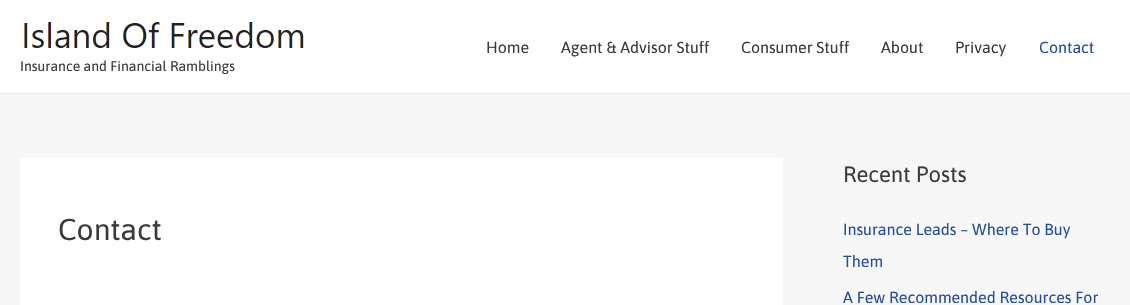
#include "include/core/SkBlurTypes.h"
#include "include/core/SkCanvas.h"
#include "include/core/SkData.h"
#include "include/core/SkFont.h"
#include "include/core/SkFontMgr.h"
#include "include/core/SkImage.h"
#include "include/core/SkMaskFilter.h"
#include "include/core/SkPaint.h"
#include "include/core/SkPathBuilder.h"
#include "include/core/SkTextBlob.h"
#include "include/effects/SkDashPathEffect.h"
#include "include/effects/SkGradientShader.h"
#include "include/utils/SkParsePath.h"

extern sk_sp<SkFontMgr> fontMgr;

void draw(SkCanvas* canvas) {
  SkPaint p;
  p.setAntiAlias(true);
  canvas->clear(SkColorSetRGB(247, 247, 247));
  p.setColor(SK_ColorWHITE);
  canvas->drawRect(SkRect::MakeLTRB(0, 0, 1130, 93), p);
  p.setColor(SkColorSetRGB(234, 234, 234));
  canvas->drawRect(SkRect::MakeLTRB(0, 93, 1130, 94), p);
  canvas->drawImageRect(SkImages::DeferredFromEncodedData(SkData::MakeFromFileName("images/1.png")), SkRect::MakeLTRB(24, 22, 304, 48), SkSamplingOptions());
  p.setColor(SK_ColorWHITE);
  canvas->drawRect(SkRect::MakeLTRB(20, 158, 783, 305), p);
  SkFont font1(fontMgr->matchFamilyStyle("Asap", SkFontStyle::Normal()), 16);
  font1.setSubpixel(true);
  p.setColor(SkColorSetRGB(58, 58, 58));
  canvas->drawString("Home", 486, 53, font1, p);
  canvas->drawString("Agent & Advisor Stuff", 561, 53, font1, p);
  canvas->drawString("Consumer Stuff", 741, 53, font1, p);
  canvas->drawString("About", 881, 53, font1, p);
  canvas->drawString("Privacy", 955, 53, font1, p);
  p.setColor(SkColorSetRGB(34, 75, 158));
  canvas->drawString("Contact", 1039, 53, font1, p);
  SkFont font2(fontMgr->matchFamilyStyle("Asap", SkFontStyle::Normal()), 14);
  font2.setSubpixel(true);
  p.setColor(SkColorSetRGB(58, 58, 58));
  canvas->drawString("Insurance and Financial Ramblings", 20, 71, font2, p);
  SkFont font3(fontMgr->matchFamilyStyle("Asap", SkFontStyle::Normal()), 30);
  font3.setSubpixel(true);
  canvas->drawString("Contact", 58, 240, font3, p);
  SkFont font4(fontMgr->matchFamilyStyle("Asap", SkFontStyle::Normal()), 22);
  font4.setSubpixel(true);
  canvas->drawString("Recent Posts", 843, 182, font4, p);
  p.setColor(SkColorSetRGB(34, 75, 158));
  canvas->drawString("Insurance Leads – Where To Buy", 843, 235, font1, p);
  canvas->drawString("Them", 843, 267, font1, p);
  canvas->drawString("A Few Recommended Resources For", 843, 303, font1, p);
}
